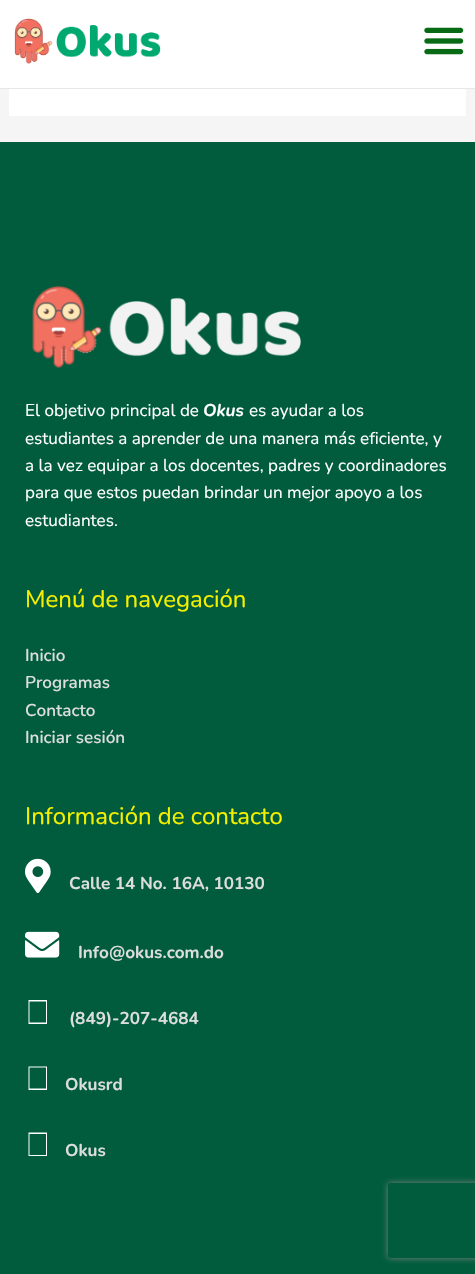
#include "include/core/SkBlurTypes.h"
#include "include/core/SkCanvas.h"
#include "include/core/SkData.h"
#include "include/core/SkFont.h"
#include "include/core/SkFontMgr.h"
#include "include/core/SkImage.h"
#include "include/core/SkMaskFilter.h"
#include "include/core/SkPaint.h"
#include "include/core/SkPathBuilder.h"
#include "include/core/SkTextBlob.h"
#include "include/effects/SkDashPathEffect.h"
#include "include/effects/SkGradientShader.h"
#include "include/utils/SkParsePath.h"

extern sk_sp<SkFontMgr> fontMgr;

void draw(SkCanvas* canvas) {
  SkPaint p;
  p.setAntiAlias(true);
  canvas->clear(SkColorSetRGB(245, 245, 245));
  p.setColor(SK_ColorWHITE);
  canvas->drawRect(SkRect::MakeLTRB(0, 0, 475, 88), p);
  p.setColor(SkColorSetRGB(231, 231, 231));
  canvas->drawRect(SkRect::MakeLTRB(0, 88, 475, 89), p);
  canvas->drawImageRect(SkImages::DeferredFromEncodedData(SkData::MakeFromFileName("images/1.png")), SkRect::MakeLTRB(14, 18, 161, 64), SkSamplingOptions());
  canvas->drawImageRect(SkImages::DeferredFromEncodedData(SkData::MakeFromFileName("images/2.png")), SkRect::MakeLTRB(424, 27, 464, 55), SkSamplingOptions());
  p.setColor(SK_ColorWHITE);
  canvas->drawRect(SkRect::MakeLTRB(9, 89, 466, 116), p);
  p.setColor(SkColorSetRGB(0, 92, 61));
  canvas->drawRect(SkRect::MakeLTRB(0, 142, 475, 1274), p);
  canvas->drawImageRect(SkImages::DeferredFromEncodedData(SkData::MakeFromFileName("images/3.png")), SkRect::MakeLTRB(32, 286, 301, 368), SkSamplingOptions());
  canvas->drawImageRect(SkImages::DeferredFromEncodedData(SkData::MakeFromFileName("images/4.png")), SkRect::MakeLTRB(25, 858, 51, 893), SkSamplingOptions());
  canvas->drawImageRect(SkImages::DeferredFromEncodedData(SkData::MakeFromFileName("images/5.png")), SkRect::MakeLTRB(25, 931, 60, 958), SkSamplingOptions());
  p.setColor(SK_ColorWHITE);
  canvas->drawPath(SkPathBuilder().moveTo(28.5f, 1000).lineTo(47, 1000).lineTo(47, 1024).lineTo(28.5f, 1024).close().moveTo(29.5f, 1001.5f).lineTo(29.5f, 1022.5f).lineTo(46, 1022.5f).lineTo(46, 1001.5f).close().detach(), p);
  canvas->drawPath(SkPathBuilder().moveTo(28.5f, 1066.5f).lineTo(47, 1066.5f).lineTo(47, 1090).lineTo(28.5f, 1090).close().moveTo(29.5f, 1067.5f).lineTo(29.5f, 1088.5f).lineTo(46, 1088.5f).lineTo(46, 1067.5f).close().detach(), p);
  canvas->drawPath(SkPathBuilder().moveTo(28.5f, 1132.5f).lineTo(47, 1132.5f).lineTo(47, 1156).lineTo(28.5f, 1156).close().moveTo(29.5f, 1134).lineTo(29.5f, 1155).lineTo(46, 1155).lineTo(46, 1134).close().detach(), p);
  canvas->save();
  canvas->clipPath(SkPathBuilder(SkPathFillType::kEvenOdd).moveTo(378, 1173).lineTo(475, 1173).lineTo(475, 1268).lineTo(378, 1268).close().moveTo(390.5f, 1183).lineTo(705.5f, 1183).cubicTo(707, 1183, 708, 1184, 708, 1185.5f).lineTo(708, 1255.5f).cubicTo(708, 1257, 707, 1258, 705.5f, 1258).lineTo(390.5f, 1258).cubicTo(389, 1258, 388, 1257, 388, 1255.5f).lineTo(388, 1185.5f).cubicTo(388, 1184, 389, 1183, 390.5f, 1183).close().detach(), true);
  p.setColor(SkColorSetRGB(128, 128, 128));
  p.setMaskFilter(SkMaskFilter::MakeBlur(kNormal_SkBlurStyle, 3));
  canvas->drawRoundRect(SkRect::MakeLTRB(388, 1183, 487, 1258), 2.5f, 2.5f, p);
  p.setMaskFilter(nullptr);
  canvas->restore();
  SkFont font1(fontMgr->matchFamilyStyle("Nunito", SkFontStyle::Normal()), 17.1f);
  font1.setSubpixel(true);
  p.setColor(SK_ColorWHITE);
  canvas->drawString("El objetivo principal de", 25, 416, font1, p);
  SkFont font2(fontMgr->matchFamilyStyle("Nunito", SkFontStyle::BoldItalic()), 17.1f);
  font2.setSubpixel(true);
  canvas->drawString("Okus", 203, 416, font2, p);
  canvas->drawString("es ayudar a los", 249, 416, font1, p);
  canvas->drawString("estudiantes a aprender de una manera más eficiente, y", 25, 444, font1, p);
  canvas->drawString("a la vez equipar a los docentes, padres y coordinadores", 25, 471, font1, p);
  canvas->drawString("para que estos puedan brindar un mejor apoyo a los", 25, 498, font1, p);
  canvas->drawString("estudiantes.", 25, 526, font1, p);
  SkFont font3(fontMgr->matchFamilyStyle("Nunito", SkFontStyle::Normal()), 24);
  font3.setSubpixel(true);
  p.setColor(SkColorSetRGB(244, 240, 0));
  canvas->drawString("Menú de navegación", 25, 607, font3, p);
  SkFont font4(fontMgr->matchFamilyStyle("Nunito", SkFontStyle(600, SkFontStyle::kNormal_Width, SkFontStyle::kUpright_Slant)), 17.1f);
  font4.setSubpixel(true);
  p.setColor(SkColorSetRGB(221, 221, 221));
  canvas->drawString("Inicio", 25, 661, font4, p);
  canvas->drawString("Programas", 25, 688, font4, p);
  canvas->drawString("Contacto", 25, 716, font4, p);
  canvas->drawString("Iniciar sesión", 25, 743, font4, p);
  p.setColor(SkColorSetRGB(244, 240, 0));
  canvas->drawString("Información de contacto", 25, 824, font3, p);
  SkFont font5(fontMgr->matchFamilyStyle("Nunito", SkFontStyle::Bold()), 17.1f);
  font5.setSubpixel(true);
  p.setColor(SkColorSetRGB(221, 221, 221));
  canvas->drawString("Calle 14 No. 16A, 10130", 69, 889, font5, p);
  canvas->drawString("Info@okus.com.do", 78, 958, font5, p);
  canvas->drawString("(849)-207-4684", 69, 1024, font5, p);
  canvas->drawString("Okusrd", 65, 1090, font5, p);
  canvas->drawString("Okus", 65, 1156, font5, p);
}
